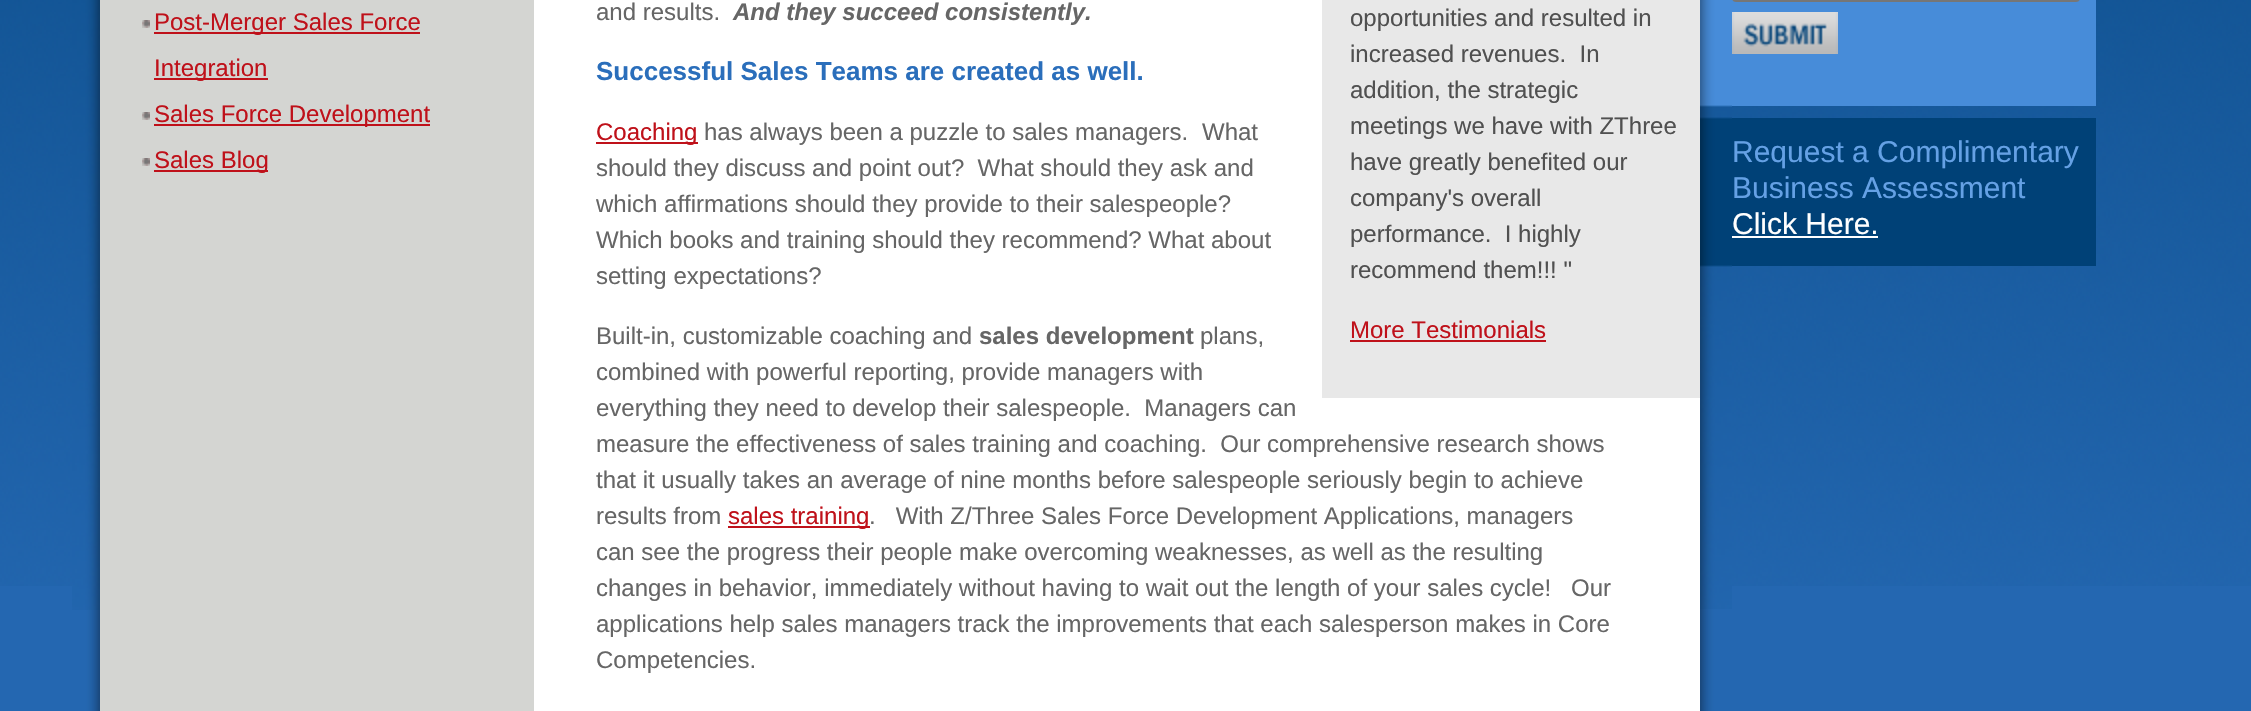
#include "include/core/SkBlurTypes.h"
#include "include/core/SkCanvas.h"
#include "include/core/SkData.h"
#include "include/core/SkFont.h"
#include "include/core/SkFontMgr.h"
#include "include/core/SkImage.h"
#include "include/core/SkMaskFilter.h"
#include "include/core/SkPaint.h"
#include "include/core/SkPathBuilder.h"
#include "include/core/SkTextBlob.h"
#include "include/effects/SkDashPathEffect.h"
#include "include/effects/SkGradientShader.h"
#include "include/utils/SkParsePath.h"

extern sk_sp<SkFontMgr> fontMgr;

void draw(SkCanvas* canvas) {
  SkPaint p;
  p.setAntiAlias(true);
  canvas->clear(SkColorSetRGB(36, 103, 177));
  canvas->drawImageRect(SkImages::DeferredFromEncodedData(SkData::MakeFromFileName("images/1.png")), SkRect::MakeLTRB(0, 0, 2251, 586), SkSamplingOptions());
  canvas->drawImageRect(SkImages::DeferredFromEncodedData(SkData::MakeFromFileName("images/2.png")), SkRect::MakeLTRB(72, 610, 100, 711), SkSamplingOptions());
  canvas->drawImageRect(SkImages::DeferredFromEncodedData(SkData::MakeFromFileName("images/3.png")), SkRect::MakeLTRB(1700, 609, 1732, 711), SkSamplingOptions());
  canvas->drawImageRect(SkImages::DeferredFromEncodedData(SkData::MakeFromFileName("images/4.png")), SkRect::MakeLTRB(72, 0, 100, 610), SkSamplingOptions());
  p.setColor(SK_ColorWHITE);
  canvas->drawRect(SkRect::MakeLTRB(534, 0, 1700, 711), p);
  p.setColor(SkColorSetRGB(212, 213, 210));
  canvas->drawRect(SkRect::MakeLTRB(100, 0, 534, 711), p);
  canvas->drawImageRect(SkImages::DeferredFromEncodedData(SkData::MakeFromFileName("images/5.png")), SkRect::MakeLTRB(142, 20, 150, 28), SkSamplingOptions());
  p.setColor(SkColorSetRGB(191, 17, 26));
  canvas->drawRect(SkRect::MakeLTRB(154, 32, 420, 34), p);
  canvas->drawRect(SkRect::MakeLTRB(154, 78, 268, 80), p);
  canvas->drawImageRect(SkImages::DeferredFromEncodedData(SkData::MakeFromFileName("images/5.png")), SkRect::MakeLTRB(142, 112, 150, 120), SkSamplingOptions());
  canvas->drawRect(SkRect::MakeLTRB(154, 124, 430, 126), p);
  canvas->drawImageRect(SkImages::DeferredFromEncodedData(SkData::MakeFromFileName("images/5.png")), SkRect::MakeLTRB(142, 158, 150, 166), SkSamplingOptions());
  canvas->drawRect(SkRect::MakeLTRB(154, 170, 268, 172), p);
  canvas->drawRect(SkRect::MakeLTRB(596, 142, 698, 144), p);
  canvas->drawRect(SkRect::MakeLTRB(728, 526, 870, 528), p);
  p.setColor(SkColorSetRGB(232, 232, 232));
  canvas->drawRect(SkRect::MakeLTRB(1322, 0, 1700, 398), p);
  p.setColor(SkColorSetRGB(191, 17, 26));
  canvas->drawRect(SkRect::MakeLTRB(1350, 340, 1546, 342), p);
  canvas->drawImageRect(SkImages::DeferredFromEncodedData(SkData::MakeFromFileName("images/6.png")), SkRect::MakeLTRB(1700, 0, 1732, 609), SkSamplingOptions());
  p.setColor(SkColorSetRGB(71, 140, 217));
  canvas->drawRect(SkRect::MakeLTRB(1732, 0, 2096, 106), p);
  p.setStyle(SkPaint::kStroke_Style);
  p.setStrokeWidth(2);
  p.setColor(SkColorSetRGB(118, 118, 118));
  canvas->drawRoundRect(SkRect::MakeLTRB(1733, -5, 2079, 1), 3, 3, p);
  canvas->drawImageRect(SkImages::DeferredFromEncodedData(SkData::MakeFromFileName("images/7.png")), SkRect::MakeLTRB(1732, 12, 1838, 54), SkSamplingOptions());
  p.setStyle(SkPaint::kFill_Style);
  p.setColor(SkColorSetRGB(0, 65, 119));
  canvas->drawRect(SkRect::MakeLTRB(1732, 118, 2096, 266), p);
  p.setColor(SK_ColorWHITE);
  canvas->drawRect(SkRect::MakeLTRB(1732, 236, 1878, 238), p);
  SkFont font1(fontMgr->matchFamilyStyle("Liberation Sans", SkFontStyle::Normal()), 24);
  font1.setSubpixel(true);
  p.setColor(SkColorSetRGB(191, 17, 26));
  canvas->drawString("Post-Merger Sales Force", 154, 30, font1, p);
  canvas->drawString("Integration", 154, 76, font1, p);
  canvas->drawString("Sales Force Development", 154, 122, font1, p);
  canvas->drawString("Sales Blog", 154, 168, font1, p);
  p.setColor(SkColorSetRGB(102, 102, 102));
  canvas->drawString("and results.", 596, 20, font1, p);
  SkFont font2(fontMgr->matchFamilyStyle("Liberation Sans", SkFontStyle::BoldItalic()), 24);
  font2.setSubpixel(true);
  canvas->drawString("And they succeed consistently.", 733, 20, font2, p);
  SkFont font3(fontMgr->matchFamilyStyle("Liberation Sans", SkFontStyle::Bold()), 26);
  font3.setSubpixel(true);
  p.setColor(SkColorSetRGB(42, 110, 187));
  canvas->drawString("Successful Sales Teams are created as well.", 596, 80, font3, p);
  p.setColor(SkColorSetRGB(191, 17, 26));
  canvas->drawString("Coaching", 596, 140, font1, p);
  p.setColor(SkColorSetRGB(102, 102, 102));
  canvas->drawString("has always been a puzzle to sales managers.", 704, 140, font1, p);
  canvas->drawString("What", 1202, 140, font1, p);
  canvas->drawString("should they discuss and point out?  What should they ask and", 596, 176, font1, p);
  canvas->drawString("which affirmations should they provide to their salespeople?", 596, 212, font1, p);
  canvas->drawString("Which books and training should they recommend? What about", 596, 248, font1, p);
  canvas->drawString("setting expectations?", 596, 284, font1, p);
  canvas->drawString("Built-in, customizable coaching and", 596, 344, font1, p);
  SkFont font4(fontMgr->matchFamilyStyle("Liberation Sans", SkFontStyle::Bold()), 24);
  font4.setSubpixel(true);
  canvas->drawString("sales development", 979, 344, font4, p);
  canvas->drawString("plans,", 1200, 344, font1, p);
  canvas->drawString("combined with powerful reporting, provide managers with", 596, 380, font1, p);
  canvas->drawString("everything they need to develop their salespeople.  Managers can", 596, 416, font1, p);
  canvas->drawString("measure the effectiveness of sales training and coaching.  Our comprehensive research shows", 596, 452, font1, p);
  canvas->drawString("that it usually takes an average of nine months before salespeople seriously begin to achieve", 596, 488, font1, p);
  canvas->drawString("results from", 596, 524, font1, p);
  p.setColor(SkColorSetRGB(191, 17, 26));
  canvas->drawString("sales training", 728, 524, font1, p);
  p.setColor(SkColorSetRGB(102, 102, 102));
  canvas->drawString(".   With Z/Three Sales Force Development Applications, managers", 869, 524, font1, p);
  canvas->drawString("can see the progress their people make overcoming weaknesses, as well as the resulting", 596, 560, font1, p);
  canvas->drawString("changes in behavior, immediately without having to wait out the length of your sales cycle!", 596, 596, font1, p);
  canvas->drawString("Our", 1571, 596, font1, p);
  canvas->drawString("applications help sales managers track the improvements that each salesperson makes in Core", 596, 632, font1, p);
  canvas->drawString("Competencies.", 596, 668, font1, p);
  p.setColor(SkColorSetRGB(80, 80, 80));
  canvas->drawString("opportunities and resulted in", 1350, 26, font1, p);
  canvas->drawString("increased revenues.  In", 1350, 62, font1, p);
  canvas->drawString("addition, the strategic", 1350, 98, font1, p);
  canvas->drawString("meetings we have with ZThree", 1350, 134, font1, p);
  canvas->drawString("have greatly benefited our", 1350, 170, font1, p);
  canvas->drawString("company's overall", 1350, 206, font1, p);
  canvas->drawString("performance.  I highly", 1350, 242, font1, p);
  canvas->drawString("recommend them!!! \"", 1350, 278, font1, p);
  p.setColor(SkColorSetRGB(191, 17, 26));
  canvas->drawString("More Testimonials", 1350, 338, font1, p);
  SkFont font5(fontMgr->matchFamilyStyle("Liberation Sans", SkFontStyle::Normal()), 30);
  font5.setSubpixel(true);
  p.setColor(SkColorSetRGB(101, 161, 229));
  canvas->drawString("Request a Complimentary", 1732, 162, font5, p);
  canvas->drawString("Business Assessment", 1732, 198, font5, p);
  p.setColor(SK_ColorWHITE);
  canvas->drawString("Click Here.", 1732, 234, font5, p);
}
